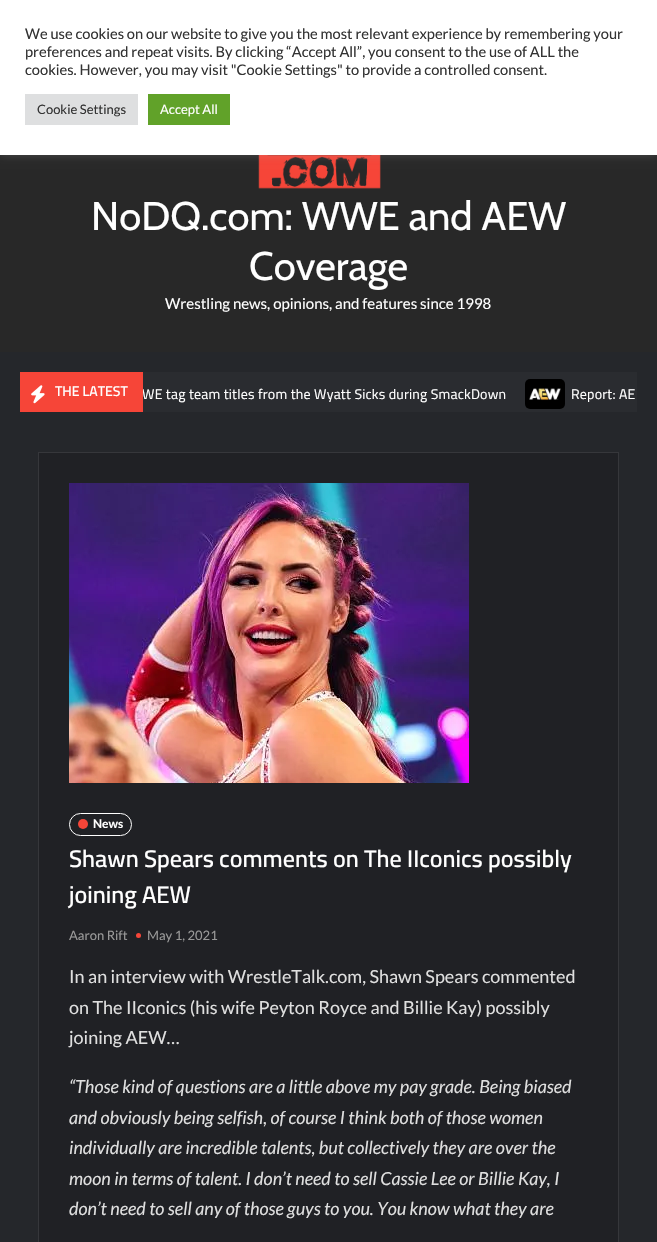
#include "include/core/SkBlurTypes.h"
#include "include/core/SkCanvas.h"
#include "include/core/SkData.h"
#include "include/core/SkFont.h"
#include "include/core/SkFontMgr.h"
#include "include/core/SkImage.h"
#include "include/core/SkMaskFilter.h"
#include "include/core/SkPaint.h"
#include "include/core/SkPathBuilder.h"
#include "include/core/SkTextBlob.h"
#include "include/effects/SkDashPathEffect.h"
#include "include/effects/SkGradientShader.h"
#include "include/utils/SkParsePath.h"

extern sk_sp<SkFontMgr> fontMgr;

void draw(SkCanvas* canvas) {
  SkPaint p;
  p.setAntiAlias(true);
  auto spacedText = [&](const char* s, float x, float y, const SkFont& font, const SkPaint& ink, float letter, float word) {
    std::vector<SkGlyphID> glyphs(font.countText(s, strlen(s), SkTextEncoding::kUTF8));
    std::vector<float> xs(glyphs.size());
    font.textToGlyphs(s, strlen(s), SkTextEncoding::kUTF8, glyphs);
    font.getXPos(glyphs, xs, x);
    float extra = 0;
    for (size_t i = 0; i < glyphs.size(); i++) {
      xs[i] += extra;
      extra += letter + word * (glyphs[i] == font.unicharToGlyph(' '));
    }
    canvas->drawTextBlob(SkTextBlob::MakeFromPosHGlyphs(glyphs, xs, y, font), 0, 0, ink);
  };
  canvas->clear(SkColorSetRGB(37, 39, 43));
  p.setColor(SkColorSetRGB(40, 40, 40));
  canvas->drawRect(SkRect::MakeLTRB(0, 155, 657, 352), p);
  canvas->drawImageRect(SkImages::DeferredFromEncodedData(SkData::MakeFromFileName("images/1.png")), SkRect::MakeLTRB(258, 155, 381, 189), SkSamplingOptions());
  p.setColor(SkColorSetARGB(77, 172, 171, 171));
  p.setMaskFilter(SkMaskFilter::MakeBlur(kNormal_SkBlurStyle, 5));
  canvas->drawRect(SkRect::MakeLTRB(0, -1, 657, 154), p);
  p.setMaskFilter(nullptr);
  p.setColor(SK_ColorWHITE);
  canvas->drawRect(SkRect::MakeLTRB(0, 0, 657, 155), p);
  p.setColor(SkColorSetRGB(222, 223, 224));
  canvas->drawRect(SkRect::MakeLTRB(25, 94, 138, 125), p);
  p.setColor(SkColorSetRGB(97, 162, 41));
  canvas->drawRect(SkRect::MakeLTRB(148, 94, 230, 125), p);
  p.setColor(SkColorSetRGB(42, 44, 48));
  canvas->drawRect(SkRect::MakeLTRB(143, 372, 637, 412), p);
  canvas->drawImageRect(SkImages::DeferredFromEncodedData(SkData::MakeFromFileName("images/3.png")), SkRect::MakeLTRB(525, 379, 565, 409), SkSamplingOptions());
  p.setColor(SkColorSetRGB(32, 33, 37));
  canvas->drawRect(SkRect::MakeLTRB(38.5f, 452.5f, 618.5f, 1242.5f), p);
  p.setStyle(SkPaint::kStroke_Style);
  p.setStrokeWidth(1);
  p.setColor(SkColorSetRGB(54, 55, 59));
  canvas->drawRect(SkRect::MakeLTRB(38.5f, 452.5f, 618.5f, 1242.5f), p);
  canvas->drawImageRect(SkImages::DeferredFromEncodedData(SkData::MakeFromFileName("images/4.png")), SkRect::MakeLTRB(69, 483, 469, 783), SkSamplingOptions());
  p.setColor(SK_ColorWHITE);
  canvas->drawRoundRect(SkRect::MakeLTRB(69.5f, 813.5f, 131.5f, 835.5f), 11, 11, p);
  p.setStyle(SkPaint::kFill_Style);
  p.setColor(SkColorSetRGB(246, 69, 56));
  canvas->drawCircle(83, 824, 5, p);
  canvas->drawCircle(138.5f, 935.5f, 2.5f, p);
  SkFont font1(fontMgr->matchFamilyStyle("Lato", SkFontStyle::Normal()), 14.65f);
  font1.setSubpixel(true);
  p.setColor(SkColorSetRGB(51, 51, 51));
  canvas->drawString("We use cookies on our website to give you the most relevant experience by remembering your", 25, 39, font1, p);
  canvas->drawString("preferences and repeat visits. By clicking “Accept All”, you consent to the use of ALL the", 25, 57, font1, p);
  canvas->drawString("cookies. However, you may visit \"Cookie Settings\" to provide a controlled consent.", 25, 75, font1, p);
  SkFont font2(fontMgr->matchFamilyStyle("Lato", SkFontStyle::Normal()), 13);
  font2.setSubpixel(true);
  canvas->drawString("Cookie Settings", 37, 114, font2, p);
  p.setColor(SK_ColorWHITE);
  canvas->drawString("Accept All", 160, 114, font2, p);
  SkFont font3(fontMgr->matchFamilyStyle("Cabin", SkFontStyle::Normal()), 40);
  font3.setSubpixel(true);
  canvas->drawString("NoDQ.com: WWE and AEW", 91, 230, font3, p);
  canvas->drawString("Coverage", 249, 280, font3, p);
  SkFont font4(fontMgr->matchFamilyStyle("Lato", SkFontStyle::Normal()), 15);
  font4.setSubpixel(true);
  canvas->drawString("Wrestling news, opinions, and features since 1998", 165, 309, font4, p);
  SkFont font5(fontMgr->matchFamilyStyle("Cairo", SkFontStyle::Normal()), 14);
  font5.setSubpixel(true);
  spacedText("WE tag team titles from the Wyatt Sicks during SmackDown", 142, 399, font5, p, 0.2f, 0);
  p.setColor(SkColorSetRGB(246, 69, 56));
  canvas->drawRect(SkRect::MakeLTRB(20, 372, 143, 412), p);
  SkFont font6(fontMgr->matchFamilyStyle("Cairo", SkFontStyle(600, SkFontStyle::kNormal_Width, SkFontStyle::kUpright_Slant)), 14);
  font6.setSubpixel(true);
  p.setColor(SK_ColorWHITE);
  canvas->drawString("THE LATEST", 55, 396, font6, p);
  canvas->drawImageRect(SkImages::DeferredFromEncodedData(SkData::MakeFromFileName("images/2.png")), SkRect::MakeLTRB(31, 385, 45, 404), SkSamplingOptions());
  spacedText("Report: AE", 571, 399, font5, p, 0.2f, 0);
  SkFont font7(fontMgr->matchFamilyStyle("Lato", SkFontStyle::Bold()), 12);
  font7.setSubpixel(true);
  canvas->drawString("News", 93, 828, font7, p);
  SkFont font8(fontMgr->matchFamilyStyle("Cairo", SkFontStyle(600, SkFontStyle::kNormal_Width, SkFontStyle::kUpright_Slant)), 24);
  font8.setSubpixel(true);
  canvas->drawString("Shawn Spears comments on The IIconics possibly", 69, 867, font8, p);
  canvas->drawString("joining AEW", 69, 903, font8, p);
  p.setColor(SkColorSetRGB(153, 153, 153));
  canvas->drawString("Aaron Rift", 69, 940, font2, p);
  canvas->drawString("May 1, 2021", 147, 940, font2, p);
  SkFont font9(fontMgr->matchFamilyStyle("Lato", SkFontStyle::Normal()), 18);
  font9.setSubpixel(true);
  p.setColor(SkColorSetRGB(223, 223, 223));
  canvas->drawString("In an interview with WrestleTalk.com, Shawn Spears commented", 69, 983, font9, p);
  canvas->drawString("on The IIconics (his wife Peyton Royce and Billie Kay) possibly", 69, 1014, font9, p);
  canvas->drawString("joining AEW…", 69, 1044, font9, p);
  SkFont font10(fontMgr->matchFamilyStyle("Lato", SkFontStyle::Italic()), 18);
  font10.setSubpixel(true);
  canvas->drawString("“Those kind of questions are a little above my pay grade. Being biased", 69, 1093, font10, p);
  canvas->drawString("and obviously being selfish, of course I think both of those women", 69, 1124, font10, p);
  canvas->drawString("individually are incredible talents, but collectively they are over the", 69, 1154, font10, p);
  canvas->drawString("moon in terms of talent. I don’t need to sell Cassie Lee or Billie Kay, I", 69, 1185, font10, p);
  canvas->drawString("don’t need to sell any of those guys to you. You know what they are", 69, 1215, font10, p);
}
